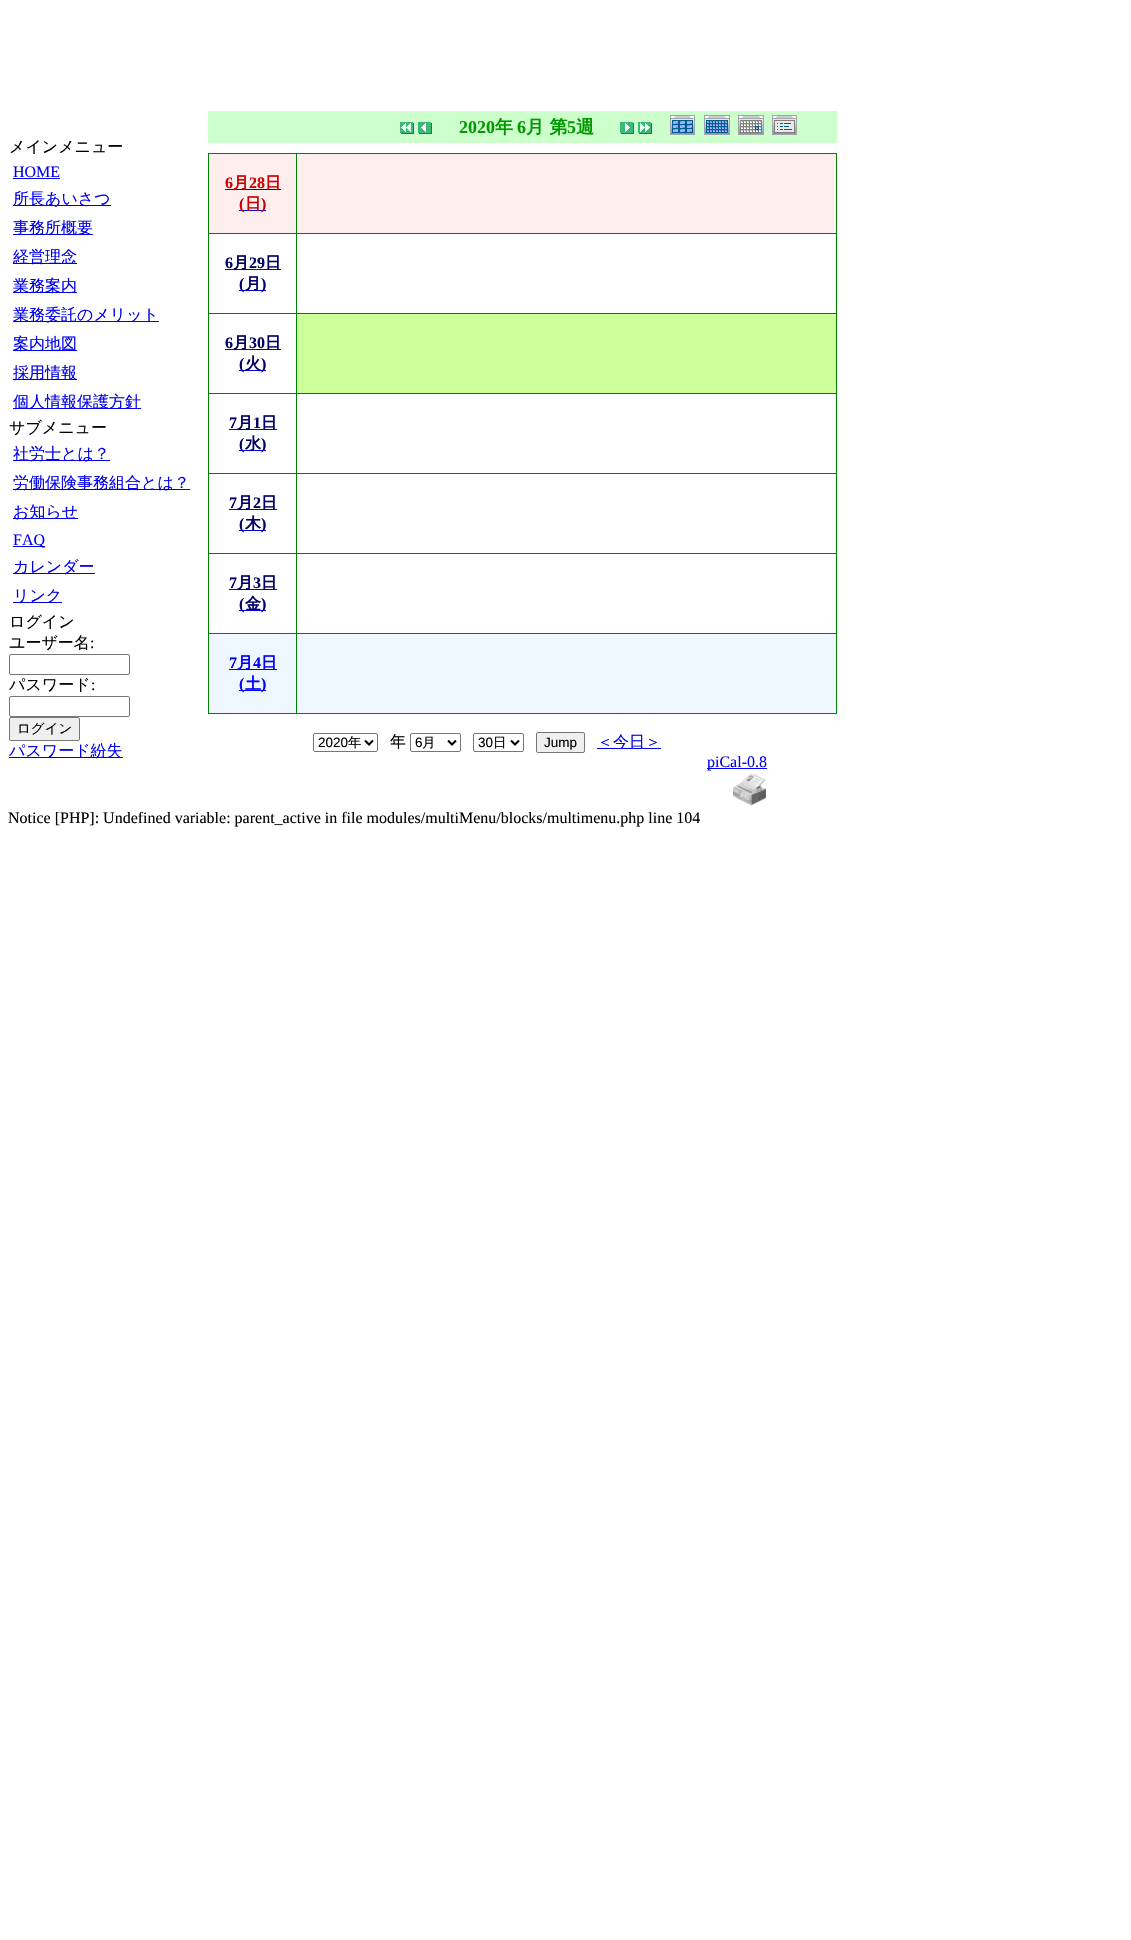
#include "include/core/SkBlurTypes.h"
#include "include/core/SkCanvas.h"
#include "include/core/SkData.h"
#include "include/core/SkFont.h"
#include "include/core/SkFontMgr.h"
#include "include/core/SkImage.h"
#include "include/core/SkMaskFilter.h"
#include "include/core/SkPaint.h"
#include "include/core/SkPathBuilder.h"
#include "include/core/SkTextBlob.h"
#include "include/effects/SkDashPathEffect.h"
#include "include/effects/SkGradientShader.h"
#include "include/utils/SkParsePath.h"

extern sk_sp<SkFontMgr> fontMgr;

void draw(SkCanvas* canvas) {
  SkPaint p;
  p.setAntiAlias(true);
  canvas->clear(SK_ColorWHITE);
  p.setColor(SkColorSetRGB(0, 0, 238));
  canvas->drawRect(SkRect::MakeLTRB(13, 178, 60, 179), p);
  canvas->drawRect(SkRect::MakeLTRB(13, 205, 111, 206), p);
  canvas->drawRect(SkRect::MakeLTRB(13, 234, 93, 235), p);
  canvas->drawRect(SkRect::MakeLTRB(13, 263, 77, 264), p);
  canvas->drawRect(SkRect::MakeLTRB(13, 292, 77, 293), p);
  canvas->drawRect(SkRect::MakeLTRB(13, 321, 159, 322), p);
  canvas->drawRect(SkRect::MakeLTRB(13, 350, 77, 351), p);
  canvas->drawRect(SkRect::MakeLTRB(13, 379, 77, 380), p);
  canvas->drawRect(SkRect::MakeLTRB(13, 408, 141, 409), p);
  canvas->drawRect(SkRect::MakeLTRB(13, 460, 110, 461), p);
  canvas->drawRect(SkRect::MakeLTRB(13, 489, 190, 490), p);
  canvas->drawRect(SkRect::MakeLTRB(13, 518, 78, 519), p);
  canvas->drawRect(SkRect::MakeLTRB(13, 546, 45, 547), p);
  canvas->drawRect(SkRect::MakeLTRB(13, 573, 95, 574), p);
  canvas->drawRect(SkRect::MakeLTRB(13, 602, 62, 603), p);
  p.setStyle(SkPaint::kStroke_Style);
  p.setStrokeWidth(1);
  p.setColor(SkColorSetRGB(118, 118, 118));
  canvas->drawRoundRect(SkRect::MakeLTRB(9.5f, 654.5f, 129.5f, 674.5f), 1.5f, 1.5f, p);
  canvas->drawRoundRect(SkRect::MakeLTRB(9.5f, 696.5f, 129.5f, 716.5f), 1.5f, 1.5f, p);
  p.setStyle(SkPaint::kFill_Style);
  p.setColor(SkColorSetRGB(239, 239, 239));
  canvas->drawRoundRect(SkRect::MakeLTRB(9.5f, 717.5f, 79.5f, 740.5f), 1.5f, 1.5f, p);
  p.setStyle(SkPaint::kStroke_Style);
  p.setColor(SkColorSetRGB(118, 118, 118));
  canvas->drawRoundRect(SkRect::MakeLTRB(9.5f, 717.5f, 79.5f, 740.5f), 1.5f, 1.5f, p);
  p.setStyle(SkPaint::kFill_Style);
  p.setColor(SkColorSetRGB(0, 0, 238));
  canvas->drawRect(SkRect::MakeLTRB(9, 757, 123, 758), p);
  p.setColor(SkColorSetRGB(204, 255, 204));
  canvas->drawRect(SkRect::MakeLTRB(208, 111, 837, 143), p);
  canvas->drawImageRect(SkImages::DeferredFromEncodedData(SkData::MakeFromFileName("images/1.png")), SkRect::MakeLTRB(400, 122, 414, 134), SkSamplingOptions());
  canvas->drawImageRect(SkImages::DeferredFromEncodedData(SkData::MakeFromFileName("images/2.png")), SkRect::MakeLTRB(418, 122, 432, 134), SkSamplingOptions());
  canvas->drawImageRect(SkImages::DeferredFromEncodedData(SkData::MakeFromFileName("images/3.png")), SkRect::MakeLTRB(620, 122, 634, 134), SkSamplingOptions());
  canvas->drawImageRect(SkImages::DeferredFromEncodedData(SkData::MakeFromFileName("images/4.png")), SkRect::MakeLTRB(638, 122, 652, 134), SkSamplingOptions());
  canvas->drawImageRect(SkImages::DeferredFromEncodedData(SkData::MakeFromFileName("images/5.png")), SkRect::MakeLTRB(670, 115, 695, 135), SkSamplingOptions());
  canvas->drawImageRect(SkImages::DeferredFromEncodedData(SkData::MakeFromFileName("images/6.png")), SkRect::MakeLTRB(704, 115, 730, 135), SkSamplingOptions());
  canvas->drawImageRect(SkImages::DeferredFromEncodedData(SkData::MakeFromFileName("images/7.png")), SkRect::MakeLTRB(738, 115, 764, 135), SkSamplingOptions());
  canvas->drawImageRect(SkImages::DeferredFromEncodedData(SkData::MakeFromFileName("images/8.png")), SkRect::MakeLTRB(772, 115, 797, 135), SkSamplingOptions());
  p.setColor(SkColorSetRGB(255, 238, 238));
  canvas->drawRect(SkRect::MakeLTRB(209, 154, 296, 233), p);
  p.setColor(SkColorSetRGB(0, 128, 0));
  canvas->drawRect(SkRect::MakeLTRB(296, 153, 837, 154), p);
  canvas->drawRect(SkRect::MakeLTRB(296, 233, 837, 234), p);
  canvas->drawRect(SkRect::MakeLTRB(296, 313, 837, 314), p);
  canvas->drawRect(SkRect::MakeLTRB(296, 393, 837, 394), p);
  canvas->drawRect(SkRect::MakeLTRB(296, 473, 837, 474), p);
  canvas->drawRect(SkRect::MakeLTRB(296, 553, 837, 554), p);
  canvas->drawRect(SkRect::MakeLTRB(296, 633, 837, 634), p);
  canvas->drawRect(SkRect::MakeLTRB(836, 633, 837, 714), p);
  canvas->drawRect(SkRect::MakeLTRB(296, 713, 837, 714), p);
  canvas->drawRect(SkRect::MakeLTRB(296, 633, 297, 714), p);
  canvas->drawRect(SkRect::MakeLTRB(208, 633, 297, 634), p);
  canvas->drawRect(SkRect::MakeLTRB(296, 553, 297, 634), p);
  canvas->drawRect(SkRect::MakeLTRB(208, 553, 297, 554), p);
  canvas->drawRect(SkRect::MakeLTRB(296, 473, 297, 554), p);
  canvas->drawRect(SkRect::MakeLTRB(208, 473, 297, 474), p);
  canvas->drawRect(SkRect::MakeLTRB(296, 393, 297, 474), p);
  canvas->drawRect(SkRect::MakeLTRB(208, 393, 297, 394), p);
  canvas->drawRect(SkRect::MakeLTRB(296, 313, 297, 394), p);
  canvas->drawRect(SkRect::MakeLTRB(208, 313, 297, 314), p);
  canvas->drawRect(SkRect::MakeLTRB(296, 233, 297, 314), p);
  canvas->drawRect(SkRect::MakeLTRB(208, 233, 297, 234), p);
  canvas->drawRect(SkRect::MakeLTRB(296, 153, 297, 234), p);
  canvas->drawRect(SkRect::MakeLTRB(208, 153, 297, 154), p);
  canvas->drawRect(SkRect::MakeLTRB(208, 713, 297, 714), p);
  canvas->drawRect(SkRect::MakeLTRB(208, 633, 209, 714), p);
  canvas->drawRect(SkRect::MakeLTRB(208, 553, 209, 634), p);
  canvas->drawRect(SkRect::MakeLTRB(208, 473, 209, 554), p);
  canvas->drawRect(SkRect::MakeLTRB(208, 393, 209, 474), p);
  canvas->drawRect(SkRect::MakeLTRB(208, 313, 209, 394), p);
  canvas->drawRect(SkRect::MakeLTRB(208, 233, 209, 314), p);
  canvas->drawRect(SkRect::MakeLTRB(208, 153, 209, 234), p);
  p.setColor(SkColorSetRGB(0, 0, 238));
  canvas->drawRect(SkRect::MakeLTRB(225, 189, 281, 190), p);
  canvas->drawRect(SkRect::MakeLTRB(239, 210, 266, 211), p);
  p.setColor(SkColorSetRGB(255, 238, 238));
  canvas->drawRect(SkRect::MakeLTRB(297, 154, 836, 233), p);
  p.setColor(SkColorSetRGB(0, 128, 0));
  canvas->drawRect(SkRect::MakeLTRB(836, 553, 837, 634), p);
  canvas->drawRect(SkRect::MakeLTRB(836, 473, 837, 554), p);
  canvas->drawRect(SkRect::MakeLTRB(836, 393, 837, 474), p);
  canvas->drawRect(SkRect::MakeLTRB(836, 313, 837, 394), p);
  canvas->drawRect(SkRect::MakeLTRB(836, 233, 837, 314), p);
  canvas->drawRect(SkRect::MakeLTRB(836, 153, 837, 234), p);
  p.setColor(SkColorSetRGB(0, 0, 238));
  canvas->drawRect(SkRect::MakeLTRB(225, 269, 281, 270), p);
  canvas->drawRect(SkRect::MakeLTRB(239, 290, 266, 291), p);
  canvas->drawRect(SkRect::MakeLTRB(225, 349, 281, 350), p);
  canvas->drawRect(SkRect::MakeLTRB(239, 370, 266, 371), p);
  p.setColor(SkColorSetRGB(204, 255, 153));
  canvas->drawRect(SkRect::MakeLTRB(297, 314, 836, 393), p);
  p.setColor(SkColorSetRGB(0, 0, 238));
  canvas->drawRect(SkRect::MakeLTRB(229, 429, 277, 430), p);
  canvas->drawRect(SkRect::MakeLTRB(239, 450, 266, 451), p);
  canvas->drawRect(SkRect::MakeLTRB(229, 509, 277, 510), p);
  canvas->drawRect(SkRect::MakeLTRB(239, 530, 266, 531), p);
  canvas->drawRect(SkRect::MakeLTRB(229, 589, 277, 590), p);
  canvas->drawRect(SkRect::MakeLTRB(239, 610, 266, 611), p);
  p.setColor(SkColorSetRGB(238, 247, 255));
  canvas->drawRect(SkRect::MakeLTRB(209, 634, 296, 713), p);
  p.setColor(SkColorSetRGB(0, 0, 238));
  canvas->drawRect(SkRect::MakeLTRB(229, 669, 277, 670), p);
  canvas->drawRect(SkRect::MakeLTRB(239, 690, 266, 691), p);
  p.setColor(SkColorSetRGB(238, 247, 255));
  canvas->drawRect(SkRect::MakeLTRB(297, 634, 836, 713), p);
  p.setStyle(SkPaint::kStroke_Style);
  p.setColor(SkColorSetRGB(118, 118, 118));
  canvas->drawRoundRect(SkRect::MakeLTRB(313.5f, 733.5f, 377.5f, 751.5f), 1.5f, 1.5f, p);
  p.setStrokeWidth(2);
  p.setColor(SK_ColorBLACK);
  canvas->drawPath(SkPathBuilder().moveTo(365, 740.5f).lineTo(369, 744.5f).lineTo(373, 740.5f).detach(), p);
  p.setStrokeWidth(1);
  p.setColor(SkColorSetRGB(118, 118, 118));
  canvas->drawRoundRect(SkRect::MakeLTRB(410.5f, 733.5f, 460.5f, 751.5f), 1.5f, 1.5f, p);
  p.setStrokeWidth(2);
  p.setColor(SK_ColorBLACK);
  canvas->drawPath(SkPathBuilder().moveTo(448, 740.5f).lineTo(452, 744.5f).lineTo(456, 740.5f).detach(), p);
  p.setStrokeWidth(1);
  p.setColor(SkColorSetRGB(118, 118, 118));
  canvas->drawRoundRect(SkRect::MakeLTRB(473.5f, 733.5f, 523.5f, 751.5f), 1.5f, 1.5f, p);
  p.setStrokeWidth(2);
  p.setColor(SK_ColorBLACK);
  canvas->drawPath(SkPathBuilder().moveTo(511, 740.5f).lineTo(515, 744.5f).lineTo(519, 740.5f).detach(), p);
  p.setStyle(SkPaint::kFill_Style);
  p.setColor(SkColorSetRGB(239, 239, 239));
  canvas->drawRoundRect(SkRect::MakeLTRB(536.5f, 732.5f, 584.5f, 752.5f), 1.5f, 1.5f, p);
  p.setStyle(SkPaint::kStroke_Style);
  p.setStrokeWidth(1);
  p.setColor(SkColorSetRGB(118, 118, 118));
  canvas->drawRoundRect(SkRect::MakeLTRB(536.5f, 732.5f, 584.5f, 752.5f), 1.5f, 1.5f, p);
  p.setStyle(SkPaint::kFill_Style);
  p.setColor(SkColorSetRGB(0, 0, 238));
  canvas->drawRect(SkRect::MakeLTRB(597, 748, 661, 749), p);
  canvas->drawRect(SkRect::MakeLTRB(707, 768, 767, 769), p);
  canvas->drawImageRect(SkImages::DeferredFromEncodedData(SkData::MakeFromFileName("images/9.png")), SkRect::MakeLTRB(733, 773, 766, 805), SkSamplingOptions());
  SkFont font1(fontMgr->matchFamilyStyle("WenQuanYi Zen Hei", SkFontStyle(500, SkFontStyle::kNormal_Width, SkFontStyle::kUpright_Slant)), 16);
  font1.setSubpixel(true);
  p.setColor(SK_ColorBLACK);
  canvas->drawString("メインメニュー", 9, 152, font1, p);
  SkFont font2(fontMgr->matchFamilyStyle("Liberation Serif", SkFontStyle::Normal()), 16);
  font2.setSubpixel(true);
  p.setColor(SkColorSetRGB(0, 0, 238));
  canvas->drawString("HOME", 13, 177, font2, p);
  canvas->drawString("所長あいさつ", 13, 204, font1, p);
  canvas->drawString("事務所概要", 13, 233, font1, p);
  canvas->drawString("経営理念", 13, 262, font1, p);
  canvas->drawString("業務案内", 13, 291, font1, p);
  canvas->drawString("業務委託のメリット", 13, 320, font1, p);
  canvas->drawString("案内地図", 13, 349, font1, p);
  canvas->drawString("採用情報", 13, 378, font1, p);
  canvas->drawString("個人情報保護方針", 13, 407, font1, p);
  p.setColor(SK_ColorBLACK);
  canvas->drawString("サブメニュー", 9, 433, font1, p);
  p.setColor(SkColorSetRGB(0, 0, 238));
  canvas->drawString("社労士とは？", 13, 459, font1, p);
  canvas->drawString("労働保険事務組合とは？", 13, 488, font1, p);
  canvas->drawString("お知らせ", 13, 517, font1, p);
  canvas->drawString("FAQ", 13, 545, font2, p);
  canvas->drawString("カレンダー", 13, 572, font1, p);
  canvas->drawString("リンク", 13, 601, font1, p);
  p.setColor(SK_ColorBLACK);
  canvas->drawString("ログイン", 9, 627, font1, p);
  canvas->drawString("ユーザー名", 9, 648, font1, p);
  canvas->drawString(":", 90, 648, font2, p);
  canvas->drawString("パスワード", 9, 690, font1, p);
  canvas->drawString(":", 91, 690, font2, p);
  SkFont font3(fontMgr->matchFamilyStyle("WenQuanYi Zen Hei", SkFontStyle(500, SkFontStyle::kNormal_Width, SkFontStyle::kUpright_Slant)), 13.5f);
  font3.setSubpixel(true);
  canvas->drawString("ログイン", 17, 733, font3, p);
  p.setColor(SkColorSetRGB(0, 0, 238));
  canvas->drawString("パスワード紛失", 9, 756, font1, p);
  SkFont font4(fontMgr->matchFamilyStyle("Liberation Serif", SkFontStyle::Bold()), 18);
  font4.setSubpixel(true);
  p.setColor(SkColorSetRGB(0, 153, 0));
  canvas->drawString("2020", 459, 133, font4, p);
  SkFont font5(fontMgr->matchFamilyStyle("WenQuanYi Zen Hei", SkFontStyle::Bold()), 18);
  font5.setSubpixel(true);
  canvas->drawString("年", 495, 133, font5, p);
  canvas->drawString("6", 517, 133, font4, p);
  canvas->drawString("月 第", 526, 133, font5, p);
  canvas->drawString("5", 567, 133, font4, p);
  canvas->drawString("週", 576, 133, font5, p);
  SkFont font6(fontMgr->matchFamilyStyle("Liberation Serif", SkFontStyle::Bold()), 16);
  font6.setSubpixel(true);
  p.setColor(SkColorSetRGB(204, 0, 0));
  canvas->drawString("6", 225, 188, font6, p);
  SkFont font7(fontMgr->matchFamilyStyle("WenQuanYi Zen Hei", SkFontStyle::Bold()), 16);
  font7.setSubpixel(true);
  canvas->drawString("月", 233, 188, font7, p);
  canvas->drawString("28", 249, 188, font6, p);
  canvas->drawString("日", 265, 188, font7, p);
  canvas->drawString("(", 239, 209, font6, p);
  canvas->drawString("日", 245, 209, font7, p);
  canvas->drawString(")", 261, 209, font6, p);
  p.setColor(SkColorSetRGB(0, 0, 102));
  canvas->drawString("6", 225, 268, font6, p);
  canvas->drawString("月", 233, 268, font7, p);
  canvas->drawString("29", 249, 268, font6, p);
  canvas->drawString("日", 265, 268, font7, p);
  canvas->drawString("(", 239, 289, font6, p);
  canvas->drawString("月", 245, 289, font7, p);
  canvas->drawString(")", 261, 289, font6, p);
  canvas->drawString("6", 225, 348, font6, p);
  canvas->drawString("月", 233, 348, font7, p);
  canvas->drawString("30", 249, 348, font6, p);
  canvas->drawString("日", 265, 348, font7, p);
  canvas->drawString("(", 239, 369, font6, p);
  canvas->drawString("火", 245, 369, font7, p);
  canvas->drawString(")", 261, 369, font6, p);
  canvas->drawString("7", 229, 428, font6, p);
  canvas->drawString("月", 237, 428, font7, p);
  canvas->drawString("1", 253, 428, font6, p);
  canvas->drawString("日", 261, 428, font7, p);
  canvas->drawString("(", 239, 449, font6, p);
  canvas->drawString("水", 245, 449, font7, p);
  canvas->drawString(")", 261, 449, font6, p);
  canvas->drawString("7", 229, 508, font6, p);
  canvas->drawString("月", 237, 508, font7, p);
  canvas->drawString("2", 253, 508, font6, p);
  canvas->drawString("日", 261, 508, font7, p);
  canvas->drawString("(", 239, 529, font6, p);
  canvas->drawString("木", 245, 529, font7, p);
  canvas->drawString(")", 261, 529, font6, p);
  canvas->drawString("7", 229, 588, font6, p);
  canvas->drawString("月", 237, 588, font7, p);
  canvas->drawString("3", 253, 588, font6, p);
  canvas->drawString("日", 261, 588, font7, p);
  canvas->drawString("(", 239, 609, font6, p);
  canvas->drawString("金", 245, 609, font7, p);
  canvas->drawString(")", 261, 609, font6, p);
  p.setColor(SkColorSetRGB(0, 0, 255));
  canvas->drawString("7", 229, 668, font6, p);
  canvas->drawString("月", 237, 668, font7, p);
  canvas->drawString("4", 253, 668, font6, p);
  canvas->drawString("日", 261, 668, font7, p);
  canvas->drawString("(", 239, 689, font6, p);
  canvas->drawString("土", 245, 689, font7, p);
  canvas->drawString(")", 261, 689, font6, p);
  SkFont font8(fontMgr->matchFamilyStyle("Liberation Sans", SkFontStyle::Normal()), 13.5f);
  font8.setSubpixel(true);
  p.setColor(SK_ColorBLACK);
  canvas->drawString("2020", 318, 747, font8, p);
  canvas->drawString("年", 348, 747, font3, p);
  canvas->drawString("年", 390, 747, font1, p);
  canvas->drawString("6", 415, 747, font8, p);
  canvas->drawString("月", 422, 747, font3, p);
  canvas->drawString("30", 478, 747, font8, p);
  canvas->drawString("日", 493, 747, font3, p);
  canvas->drawString("Jump", 544, 747, font8, p);
  p.setColor(SkColorSetRGB(0, 0, 238));
  canvas->drawString("＜今日＞", 597, 747, font1, p);
  canvas->drawString("piCal-0.8", 707, 767, font2, p);
  p.setColor(SK_ColorBLACK);
  canvas->drawString("Notice [PHP]: Undefined variable: parent_active in file modules/multiMenu/blocks/multimenu.php line 104", 8, 823, font2, p);
}
